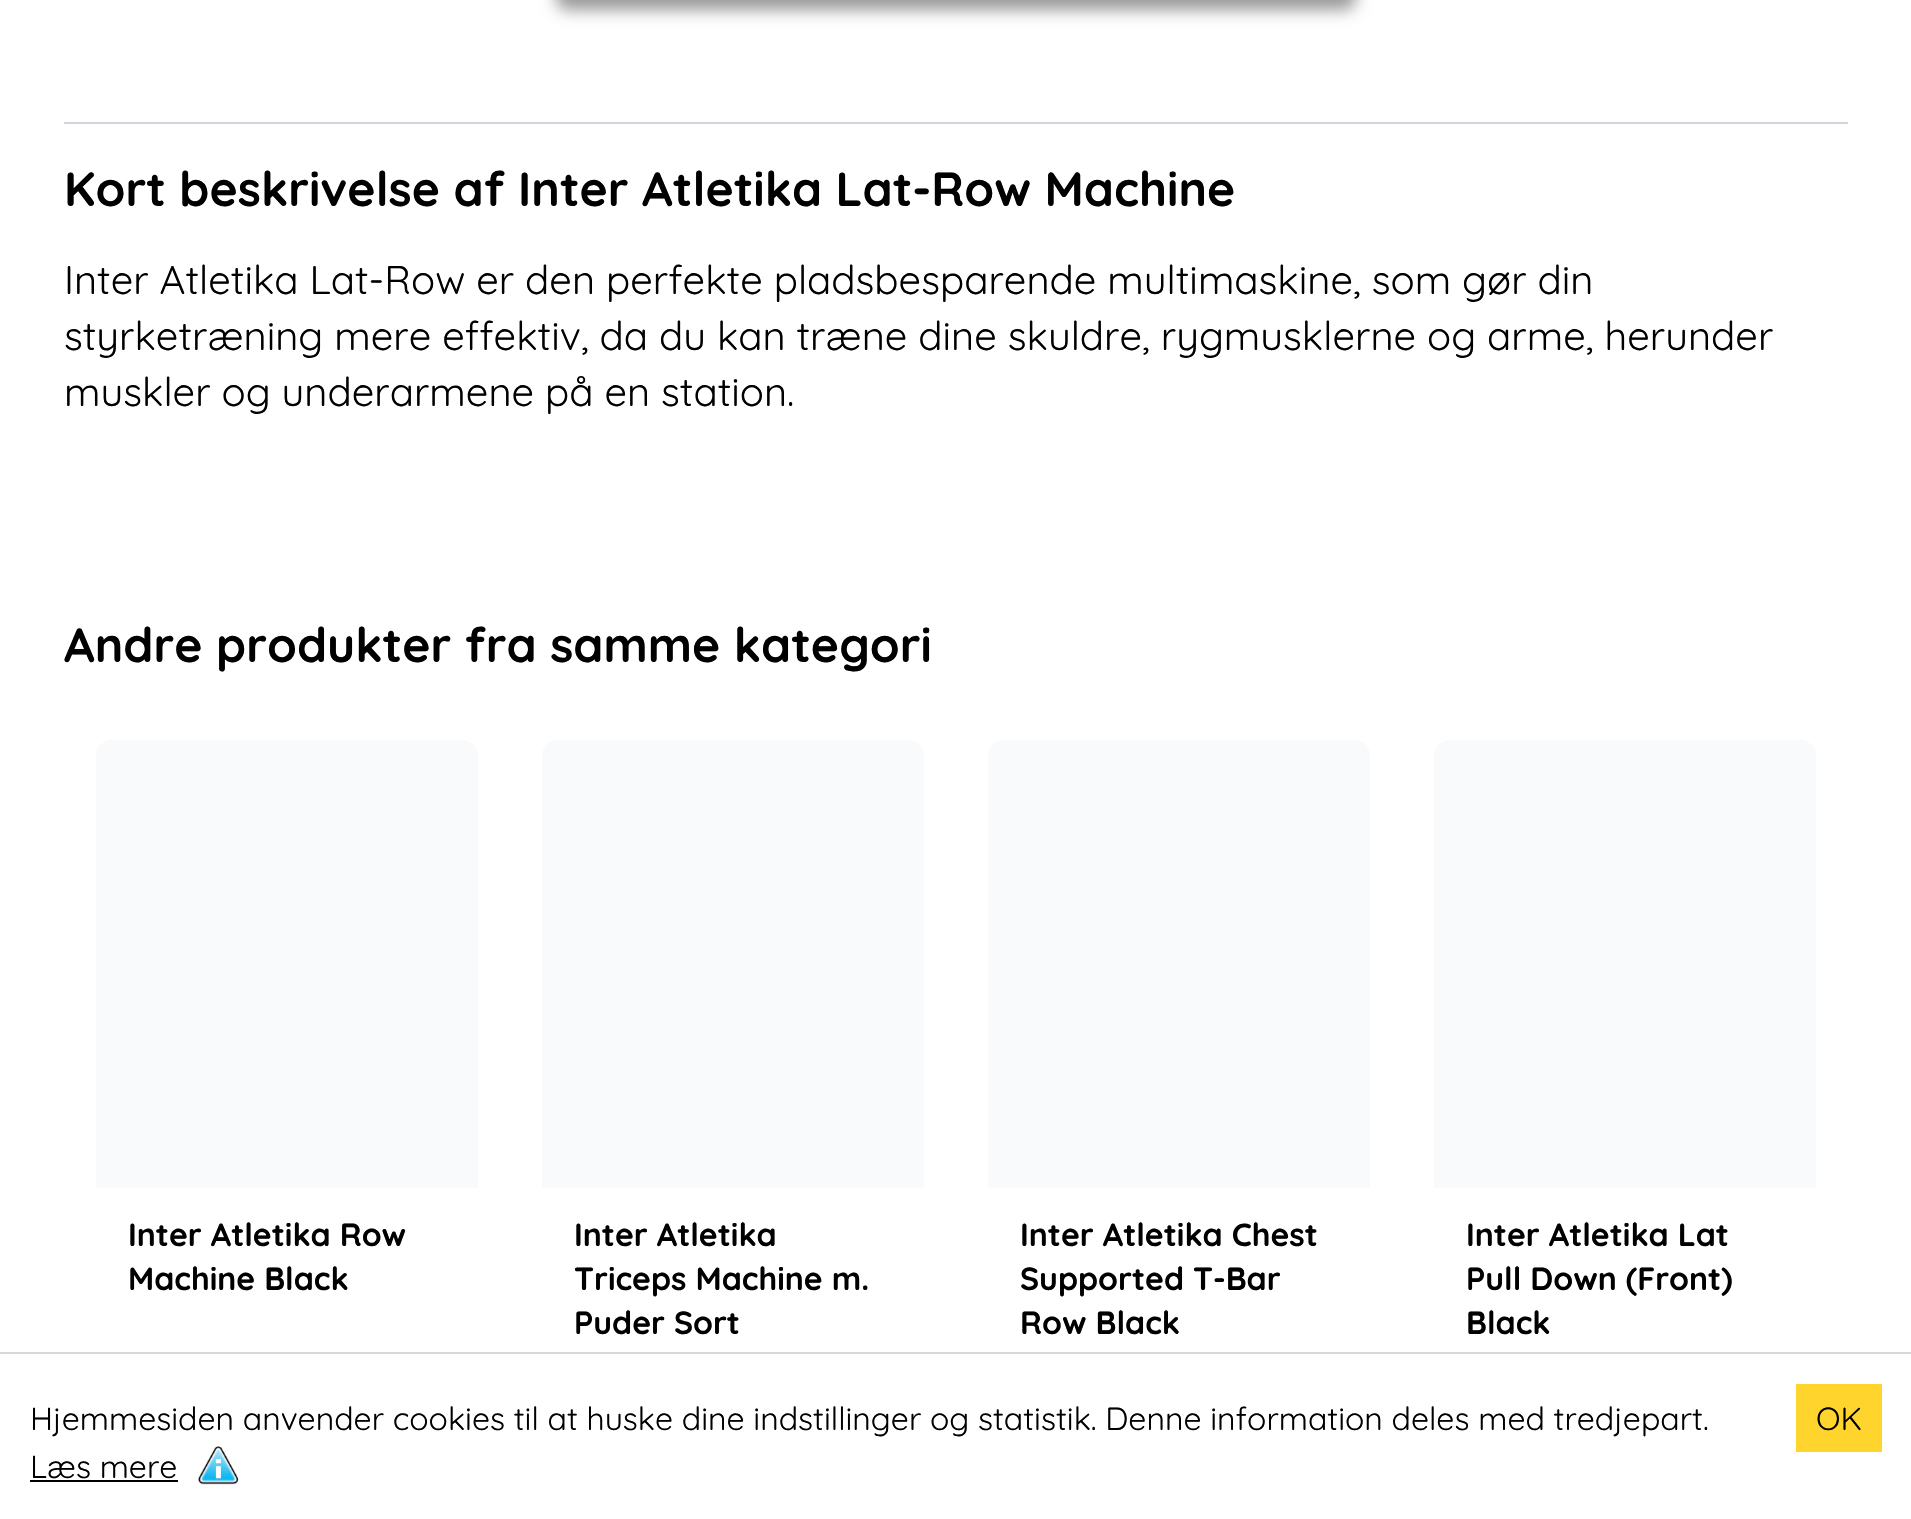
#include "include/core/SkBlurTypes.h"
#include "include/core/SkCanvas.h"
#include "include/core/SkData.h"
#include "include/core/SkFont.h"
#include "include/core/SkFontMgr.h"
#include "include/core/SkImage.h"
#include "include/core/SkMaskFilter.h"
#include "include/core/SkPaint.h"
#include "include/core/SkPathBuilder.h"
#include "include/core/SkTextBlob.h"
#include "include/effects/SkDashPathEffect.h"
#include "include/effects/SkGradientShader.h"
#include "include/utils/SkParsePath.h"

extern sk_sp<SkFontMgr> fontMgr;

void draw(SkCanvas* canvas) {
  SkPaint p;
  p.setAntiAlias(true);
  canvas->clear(SK_ColorWHITE);
  p.setColor(SkColorSetARGB(102, 0, 0, 0));
  p.setMaskFilter(SkMaskFilter::MakeBlur(kNormal_SkBlurStyle, 8));
  canvas->drawRoundRect(SkRect::MakeLTRB(556, -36, 1356, 10), 12, 12, p);
  p.setMaskFilter(nullptr);
  p.setColor(SkColorSetRGB(209, 213, 219));
  canvas->drawRect(SkRect::MakeLTRB(64, 122, 1848, 124), p);
  p.setColor(SkColorSetRGB(249, 250, 251));
  canvas->drawPath(SkPathBuilder().moveTo(112, 740).lineTo(462, 740).cubicTo(471, 740, 478, 747, 478, 756).lineTo(478, 1188).lineTo(96, 1188).lineTo(96, 756).cubicTo(96, 747, 103, 740, 112, 740).close().detach(), p);
  canvas->drawPath(SkPathBuilder().moveTo(558, 740).lineTo(908, 740).cubicTo(917, 740, 924, 747, 924, 756).lineTo(924, 1188).lineTo(542, 1188).lineTo(542, 756).cubicTo(542, 747, 549, 740, 558, 740).close().detach(), p);
  canvas->drawPath(SkPathBuilder().moveTo(1004, 740).lineTo(1354, 740).cubicTo(1363, 740, 1370, 747, 1370, 756).lineTo(1370, 1188).lineTo(988, 1188).lineTo(988, 756).cubicTo(988, 747, 995, 740, 1004, 740).close().detach(), p);
  canvas->drawPath(SkPathBuilder().moveTo(1450, 740).lineTo(1800, 740).cubicTo(1809, 740, 1816, 747, 1816, 756).lineTo(1816, 1188).lineTo(1434, 1188).lineTo(1434, 756).cubicTo(1434, 747, 1441, 740, 1450, 740).close().detach(), p);
  p.setColor(SkColorSetRGB(216, 216, 216));
  canvas->drawRect(SkRect::MakeLTRB(0, 1352, 1911, 1354), p);
  p.setColor(SK_ColorBLACK);
  canvas->drawRect(SkRect::MakeLTRB(30, 1480, 178, 1482), p);
  canvas->drawImageRect(SkImages::DeferredFromEncodedData(SkData::MakeFromFileName("images/1.png")), SkRect::MakeLTRB(198, 1446, 239, 1485), SkSamplingOptions());
  p.setColor(SkColorSetRGB(255, 212, 45));
  canvas->drawRect(SkRect::MakeLTRB(1796, 1384, 1882, 1452), p);
  SkFont font1(fontMgr->matchFamilyStyle("Quicksand", SkFontStyle::Bold()), 48);
  font1.setSubpixel(true);
  p.setColor(SK_ColorBLACK);
  canvas->drawString("Kort beskrivelse af Inter Atletika Lat-Row Machine", 64, 206, font1, p);
  SkFont font2(fontMgr->matchFamilyStyle("Quicksand", SkFontStyle::Normal()), 40);
  font2.setSubpixel(true);
  canvas->drawString("Inter Atletika Lat-Row er den perfekte pladsbesparende multimaskine, som gør din", 64, 294, font2, p);
  canvas->drawString("styrketræning mere effektiv, da du kan træne dine skuldre, rygmusklerne og arme, herunder", 64, 350, font2, p);
  canvas->drawString("muskler og underarmene på en station.", 64, 406, font2, p);
  canvas->drawString("Andre produkter fra samme kategori", 64, 662, font1, p);
  SkFont font3(fontMgr->matchFamilyStyle("Quicksand", SkFontStyle::Bold()), 32);
  font3.setSubpixel(true);
  canvas->drawString("Inter Atletika Row", 128, 1246, font3, p);
  canvas->drawString("Machine Black", 128, 1290, font3, p);
  canvas->drawString("Inter Atletika", 574, 1246, font3, p);
  canvas->drawString("Triceps Machine m.", 574, 1290, font3, p);
  canvas->drawString("Puder Sort", 574, 1334, font3, p);
  canvas->drawString("Inter Atletika Chest", 1020, 1246, font3, p);
  canvas->drawString("Supported T-Bar", 1020, 1290, font3, p);
  canvas->drawString("Row Black", 1020, 1334, font3, p);
  canvas->drawString("Inter Atletika Lat", 1466, 1246, font3, p);
  canvas->drawString("Pull Down (Front)", 1466, 1290, font3, p);
  canvas->drawString("Black", 1466, 1334, font3, p);
  SkFont font4(fontMgr->matchFamilyStyle("Quicksand", SkFontStyle::Normal()), 32);
  font4.setSubpixel(true);
  canvas->drawString("Hjemmesiden anvender cookies til at huske dine indstillinger og statistik. Denne information deles med tredjepart.", 30, 1430, font4, p);
  canvas->drawString("Læs mere", 30, 1478, font4, p);
  canvas->drawString("OK", 1816, 1430, font4, p);
}
